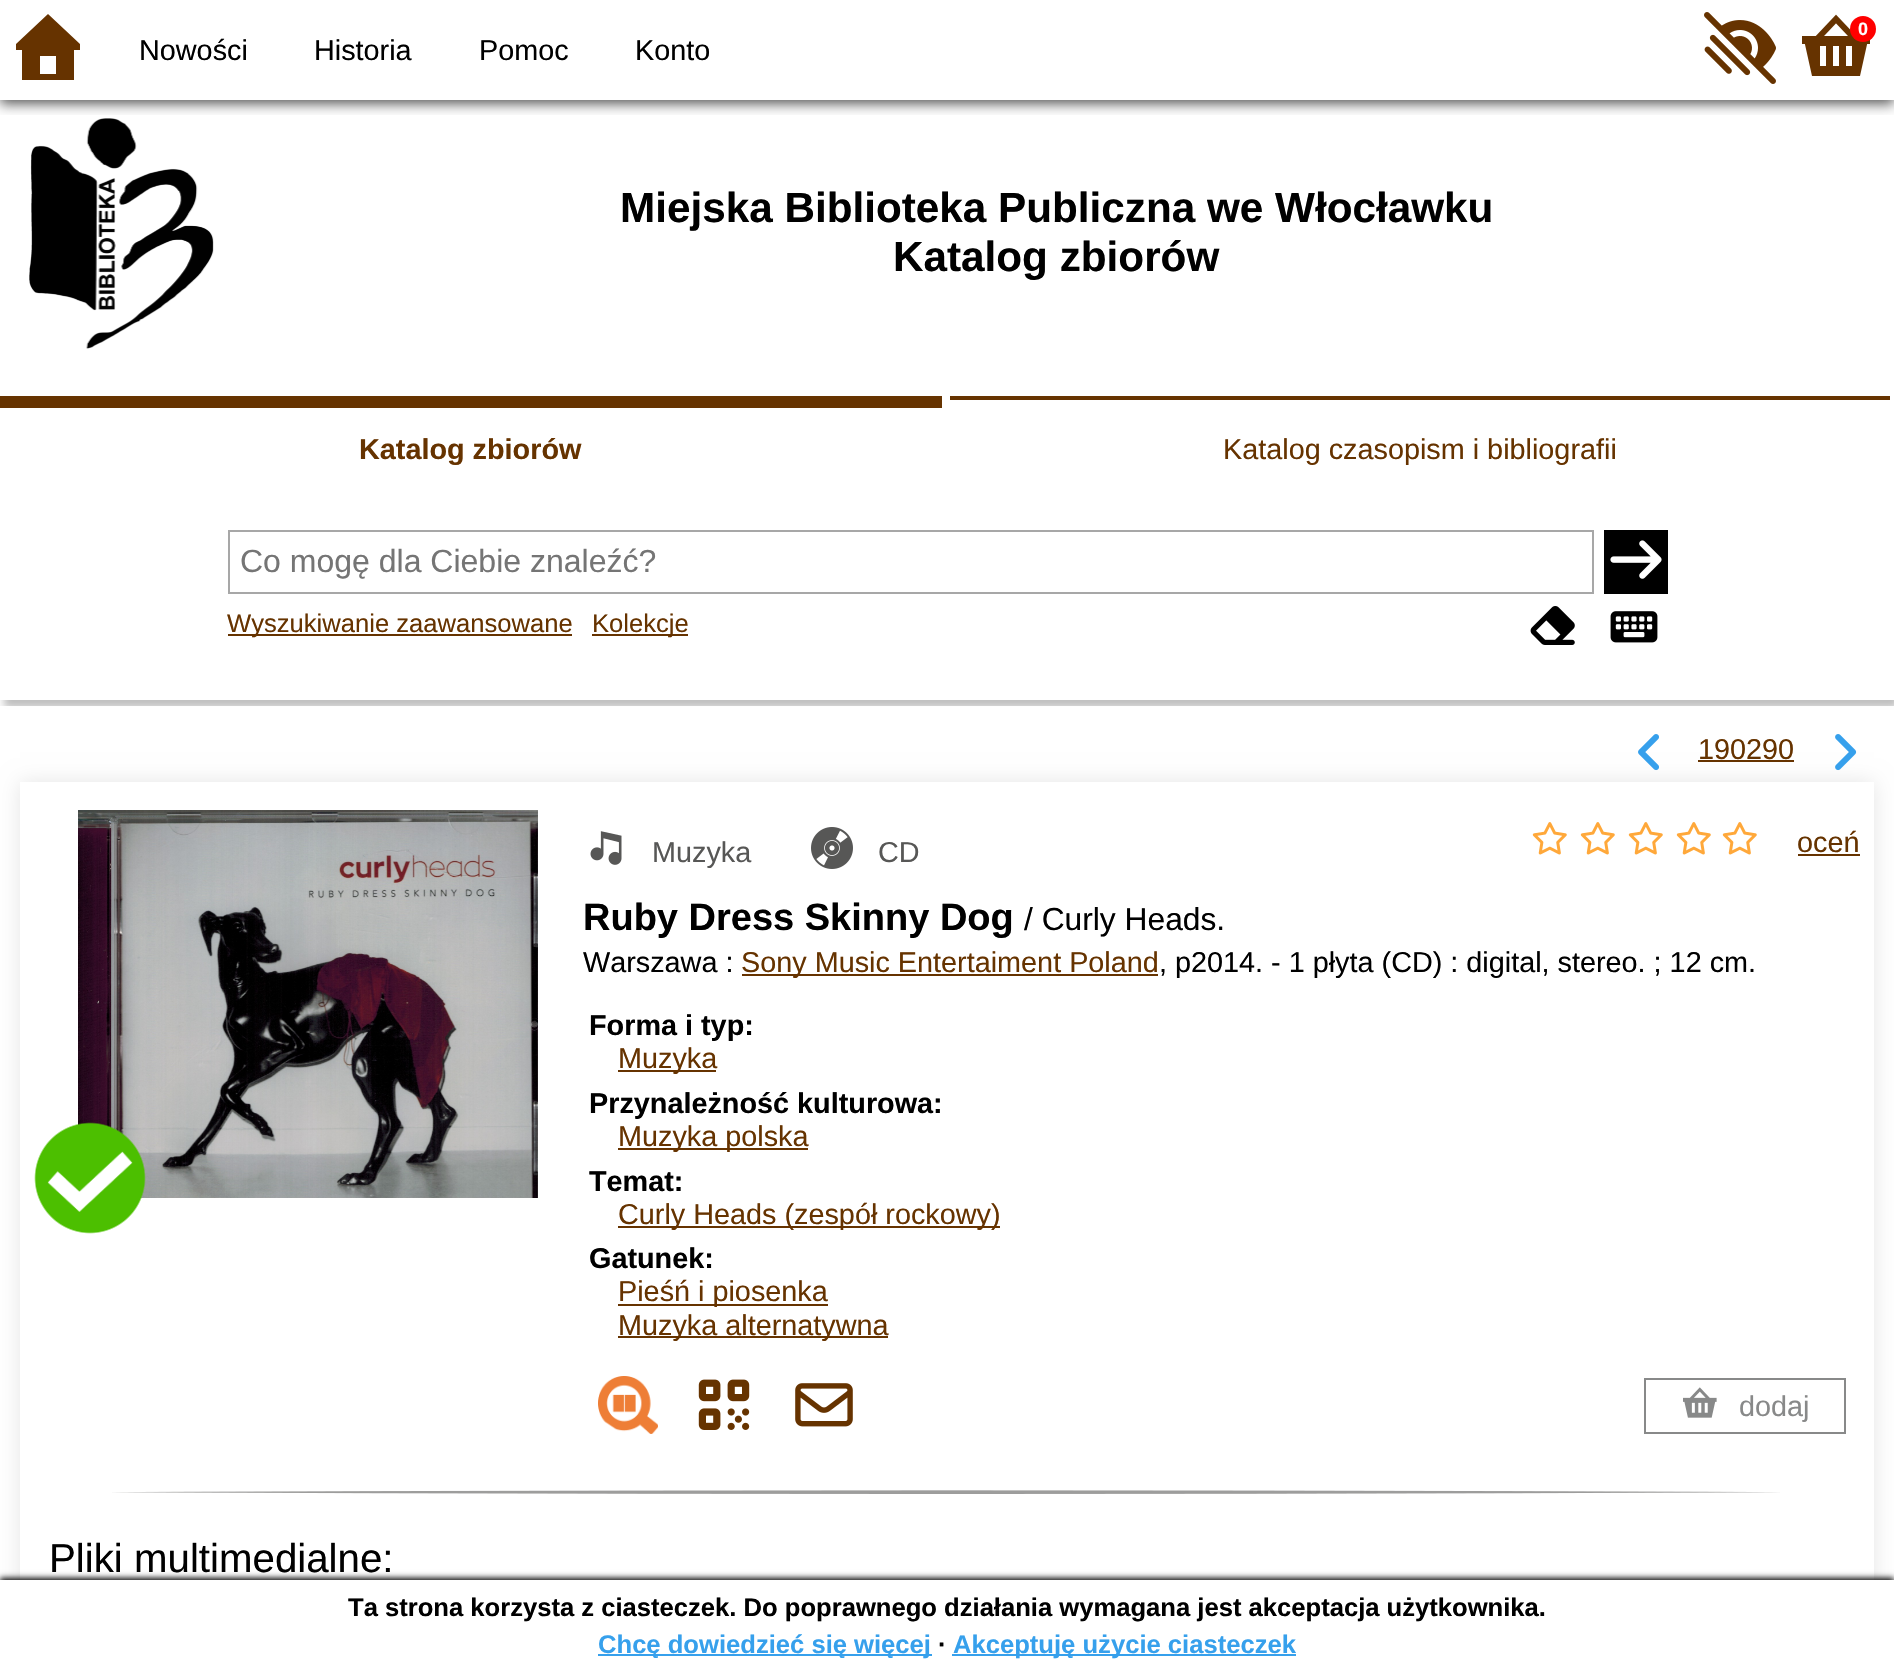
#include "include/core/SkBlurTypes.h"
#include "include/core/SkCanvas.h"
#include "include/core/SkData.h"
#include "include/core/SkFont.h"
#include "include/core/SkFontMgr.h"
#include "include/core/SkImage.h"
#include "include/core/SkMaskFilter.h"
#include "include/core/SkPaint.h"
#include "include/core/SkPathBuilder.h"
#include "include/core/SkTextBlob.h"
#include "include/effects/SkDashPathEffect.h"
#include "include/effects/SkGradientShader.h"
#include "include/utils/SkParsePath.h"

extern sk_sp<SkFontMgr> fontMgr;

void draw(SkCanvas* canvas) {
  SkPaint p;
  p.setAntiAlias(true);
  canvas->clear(SK_ColorWHITE);
  canvas->drawImageRect(SkImages::DeferredFromEncodedData(SkData::MakeFromFileName("images/3.png")), SkRect::MakeLTRB(29, 118, 214, 349), SkSamplingOptions());
  canvas->save();
  canvas->clipRect(SkRect::MakeLTRB(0, 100, 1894, 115));
  p.setColor(SkColorSetARGB(166, 0, 0, 0));
  p.setMaskFilter(SkMaskFilter::MakeBlur(kNormal_SkBlurStyle, 6));
  canvas->drawRect(SkRect::MakeLTRB(0, 4, 1894, 104), p);
  p.setMaskFilter(nullptr);
  canvas->restore();
  canvas->drawImageRect(SkImages::DeferredFromEncodedData(SkData::MakeFromFileName("images/1.png")), SkRect::MakeLTRB(1704, 12, 1776, 84), SkSamplingOptions());
  canvas->drawImageRect(SkImages::DeferredFromEncodedData(SkData::MakeFromFileName("images/2.png")), SkRect::MakeLTRB(1802, 14, 1870, 76), SkSamplingOptions());
  p.setColor(SkColorSetRGB(255, 0, 0));
  canvas->drawCircle(1863, 29, 13, p);
  p.setColor(SkColorSetRGB(102, 51, 0));
  canvas->drawPath(SkPathBuilder().moveTo(80, 50).lineTo(74, 50).lineTo(74, 80).lineTo(22, 80).lineTo(22, 50).lineTo(16, 50).lineTo(16, 44).lineTo(48, 14).lineTo(80, 44).close().moveTo(56, 74).lineTo(56, 56).lineTo(40, 56).lineTo(40, 74).close().detach(), p);
  canvas->save();
  canvas->clipRect(SkRect::MakeLTRB(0, 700, 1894, 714));
  p.setColor(SkColorSetARGB(64, 0, 0, 0));
  p.setMaskFilter(SkMaskFilter::MakeBlur(kNormal_SkBlurStyle, 4));
  canvas->drawRect(SkRect::MakeLTRB(4, 404, 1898, 708), p);
  p.setMaskFilter(nullptr);
  canvas->restore();
  p.setColor(SkColorSetRGB(102, 51, 0));
  canvas->drawRect(SkRect::MakeLTRB(0, 396, 942, 408), p);
  canvas->drawRect(SkRect::MakeLTRB(950, 396, 1890, 400), p);
  p.setStyle(SkPaint::kStroke_Style);
  p.setStrokeWidth(2);
  p.setColor(SkColorSetRGB(167, 167, 167));
  canvas->drawRect(SkRect::MakeLTRB(229, 531, 1593, 593), p);
  p.setStyle(SkPaint::kFill_Style);
  p.setColor(SK_ColorBLACK);
  canvas->drawRect(SkRect::MakeLTRB(1604, 530, 1668, 594), p);
  canvas->drawImageRect(SkImages::DeferredFromEncodedData(SkData::MakeFromFileName("images/4.png")), SkRect::MakeLTRB(1610, 540, 1662, 579), SkSamplingOptions());
  p.setColor(SkColorSetRGB(102, 51, 0));
  canvas->drawRect(SkRect::MakeLTRB(228, 634, 572, 636), p);
  canvas->drawRect(SkRect::MakeLTRB(592, 634, 688, 636), p);
  canvas->drawImageRect(SkImages::DeferredFromEncodedData(SkData::MakeFromFileName("images/5.png")), SkRect::MakeLTRB(1530, 606, 1575, 645), SkSamplingOptions());
  canvas->drawImageRect(SkImages::DeferredFromEncodedData(SkData::MakeFromFileName("images/6.png")), SkRect::MakeLTRB(1610, 611, 1658, 643), SkSamplingOptions());
  p.setColor(SkColorSetARGB(242, 255, 255, 255));
  canvas->drawRect(SkRect::MakeLTRB(0, 706, 1894, 715), p);
  canvas->save();
  canvas->clipPath(SkPathBuilder(SkPathFillType::kEvenOdd).moveTo(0, 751).lineTo(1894, 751).lineTo(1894, 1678).lineTo(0, 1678).close().moveTo(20, 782).lineTo(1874, 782).lineTo(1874, 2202).lineTo(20, 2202).close().detach(), true);
  p.setColor(SkColorSetARGB(26, 0, 0, 0));
  p.setMaskFilter(SkMaskFilter::MakeBlur(kNormal_SkBlurStyle, 10));
  canvas->drawRect(SkRect::MakeLTRB(20, 782, 1874, 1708), p);
  p.setMaskFilter(nullptr);
  canvas->restore();
  canvas->drawImageRect(SkImages::DeferredFromEncodedData(SkData::MakeFromFileName("images/7.png")), SkRect::MakeLTRB(1638, 734, 1659, 771), SkSamplingOptions());
  p.setColor(SkColorSetRGB(102, 51, 0));
  canvas->drawRect(SkRect::MakeLTRB(1698, 760, 1794, 762), p);
  canvas->drawImageRect(SkImages::DeferredFromEncodedData(SkData::MakeFromFileName("images/8.png")), SkRect::MakeLTRB(1835, 734, 1857, 771), SkSamplingOptions());
  canvas->drawImageRect(SkImages::DeferredFromEncodedData(SkData::MakeFromFileName("images/9.png")), SkRect::MakeLTRB(78, 810, 538, 1198), SkSamplingOptions());
  canvas->drawImageRect(SkImages::DeferredFromEncodedData(SkData::MakeFromFileName("images/10.png")), SkRect::MakeLTRB(34, 1122, 146, 1234), SkSamplingOptions());
  canvas->drawImageRect(SkImages::DeferredFromEncodedData(SkData::MakeFromFileName("images/11.png")), SkRect::MakeLTRB(590, 831, 622, 865), SkSamplingOptions());
  canvas->drawImageRect(SkImages::DeferredFromEncodedData(SkData::MakeFromFileName("images/12.png")), SkRect::MakeLTRB(811, 827, 853, 869), SkSamplingOptions());
  canvas->drawImageRect(SkImages::DeferredFromEncodedData(SkData::MakeFromFileName("images/13.png")), SkRect::MakeLTRB(1532, 822, 1567, 855), SkSamplingOptions());
  canvas->drawImageRect(SkImages::DeferredFromEncodedData(SkData::MakeFromFileName("images/13.png")), SkRect::MakeLTRB(1580, 822, 1615, 855), SkSamplingOptions());
  canvas->drawImageRect(SkImages::DeferredFromEncodedData(SkData::MakeFromFileName("images/13.png")), SkRect::MakeLTRB(1628, 822, 1663, 855), SkSamplingOptions());
  canvas->drawImageRect(SkImages::DeferredFromEncodedData(SkData::MakeFromFileName("images/13.png")), SkRect::MakeLTRB(1676, 822, 1711, 855), SkSamplingOptions());
  canvas->drawImageRect(SkImages::DeferredFromEncodedData(SkData::MakeFromFileName("images/13.png")), SkRect::MakeLTRB(1722, 822, 1757, 855), SkSamplingOptions());
  canvas->drawRect(SkRect::MakeLTRB(1798, 854, 1860, 856), p);
  canvas->drawRect(SkRect::MakeLTRB(742, 974, 1158, 976), p);
  canvas->drawRect(SkRect::MakeLTRB(618, 1070, 716, 1072), p);
  canvas->drawRect(SkRect::MakeLTRB(618, 1148, 808, 1150), p);
  canvas->drawRect(SkRect::MakeLTRB(618, 1226, 1000, 1228), p);
  canvas->drawRect(SkRect::MakeLTRB(618, 1304, 828, 1306), p);
  canvas->drawRect(SkRect::MakeLTRB(618, 1336, 888, 1338), p);
  canvas->drawImageRect(SkImages::DeferredFromEncodedData(SkData::MakeFromFileName("images/14.png")), SkRect::MakeLTRB(598, 1376, 658, 1434), SkSamplingOptions());
  canvas->drawImageRect(SkImages::DeferredFromEncodedData(SkData::MakeFromFileName("images/15.png")), SkRect::MakeLTRB(698, 1379, 750, 1430), SkSamplingOptions());
  canvas->drawImageRect(SkImages::DeferredFromEncodedData(SkData::MakeFromFileName("images/16.png")), SkRect::MakeLTRB(795, 1383, 853, 1427), SkSamplingOptions());
  p.setStyle(SkPaint::kStroke_Style);
  p.setColor(SkColorSetRGB(136, 137, 137));
  canvas->drawRect(SkRect::MakeLTRB(1645, 1379, 1845, 1433), p);
  canvas->drawImageRect(SkImages::DeferredFromEncodedData(SkData::MakeFromFileName("images/17.png")), SkRect::MakeLTRB(1683, 1387, 1717, 1418), SkSamplingOptions());
  canvas->drawImageRect(SkImages::DeferredFromEncodedData(SkData::MakeFromFileName("images/18.png")), SkRect::MakeLTRB(112, 1490, 1780, 1494), SkSamplingOptions());
  p.setStyle(SkPaint::kFill_Style);
  p.setColor(SK_ColorBLACK);
  p.setMaskFilter(SkMaskFilter::MakeBlur(kNormal_SkBlurStyle, 3));
  canvas->drawRect(SkRect::MakeLTRB(0, 1578, 1894, 1676), p);
  p.setMaskFilter(nullptr);
  p.setColor(SK_ColorWHITE);
  canvas->drawRect(SkRect::MakeLTRB(0, 1580, 1894, 1678), p);
  p.setColor(SkColorSetRGB(54, 160, 236));
  canvas->drawRect(SkRect::MakeLTRB(598, 1654, 932, 1656), p);
  canvas->drawRect(SkRect::MakeLTRB(952, 1654, 1296, 1656), p);
  SkFont font1(fontMgr->matchFamilyStyle("Liberation Sans", SkFontStyle::Bold()), 18);
  font1.setSubpixel(true);
  p.setColor(SK_ColorWHITE);
  canvas->drawString("0", 1858, 35, font1, p);
  SkFont font2(fontMgr->matchFamilyStyle("Liberation Sans", SkFontStyle::Normal()), 28.8f);
  font2.setSubpixel(true);
  p.setColor(SK_ColorBLACK);
  canvas->drawString("Nowości", 139, 60, font2, p);
  canvas->drawString("Historia", 314, 60, font2, p);
  canvas->drawString("Pomoc", 479, 60, font2, p);
  canvas->drawString("Konto", 635, 60, font2, p);
  SkFont font3(fontMgr->matchFamilyStyle("Liberation Sans", SkFontStyle::Bold()), 42.25f);
  font3.setSubpixel(true);
  canvas->drawString("Miejska Biblioteka Publiczna we Włocławku", 620, 222, font3, p);
  canvas->drawString("Katalog zbiorów", 893, 271, font3, p);
  SkFont font4(fontMgr->matchFamilyStyle("Liberation Sans", SkFontStyle::Bold()), 28.8f);
  font4.setSubpixel(true);
  p.setColor(SkColorSetRGB(102, 51, 0));
  canvas->drawString("Katalog zbiorów", 359, 459, font4, p);
  canvas->drawString("Katalog czasopism i bibliografii", 1223, 459, font2, p);
  SkFont font5(fontMgr->matchFamilyStyle("Liberation Sans", SkFontStyle::Normal()), 32);
  font5.setSubpixel(true);
  p.setColor(SkColorSetRGB(117, 117, 117));
  canvas->drawString("Co mogę dla Ciebie znaleźć?", 240, 572, font5, p);
  SkFont font6(fontMgr->matchFamilyStyle("Liberation Sans", SkFontStyle::Normal()), 25.6f);
  font6.setSubpixel(true);
  p.setColor(SkColorSetRGB(102, 51, 0));
  canvas->drawString("Wyszukiwanie zaawansowane", 227, 632, font6, p);
  canvas->drawString("Kolekcje", 592, 632, font6, p);
  canvas->drawString("190290", 1698, 759, font2, p);
  p.setColor(SkColorSetRGB(87, 87, 86));
  canvas->drawString("Muzyka", 652, 862, font2, p);
  canvas->drawString("CD", 878, 862, font2, p);
  p.setColor(SkColorSetRGB(102, 51, 0));
  canvas->drawString("oceń", 1797, 852, font2, p);
  SkFont font7(fontMgr->matchFamilyStyle("Liberation Sans", SkFontStyle::Bold()), 38);
  font7.setSubpixel(true);
  p.setColor(SK_ColorBLACK);
  canvas->drawString("Ruby Dress Skinny Dog", 583, 930, font7, p);
  SkFont font8(fontMgr->matchFamilyStyle("Liberation Sans", SkFontStyle::Normal()), 31.75f);
  font8.setSubpixel(true);
  canvas->drawString("/ Curly Heads.", 1024, 930, font8, p);
  canvas->drawString("Warszawa :", 583, 972, font2, p);
  p.setColor(SkColorSetRGB(102, 51, 0));
  canvas->drawString("Sony Music Entertaiment Poland", 741, 972, font2, p);
  p.setColor(SK_ColorBLACK);
  canvas->drawString(", p2014. - 1 płyta (CD) : digital, stereo. ; 12 cm.", 1159, 972, font2, p);
  canvas->drawString("Forma i typ:", 589, 1035, font4, p);
  p.setColor(SkColorSetRGB(102, 51, 0));
  canvas->drawString("Muzyka", 618, 1068, font2, p);
  p.setColor(SK_ColorBLACK);
  canvas->drawString("Przynależność kulturowa:", 589, 1113, font4, p);
  p.setColor(SkColorSetRGB(102, 51, 0));
  canvas->drawString("Muzyka polska", 618, 1146, font2, p);
  p.setColor(SK_ColorBLACK);
  canvas->drawString("Temat:", 589, 1191, font4, p);
  p.setColor(SkColorSetRGB(102, 51, 0));
  canvas->drawString("Curly Heads (zespół rockowy)", 618, 1224, font2, p);
  p.setColor(SK_ColorBLACK);
  canvas->drawString("Gatunek:", 589, 1268, font4, p);
  p.setColor(SkColorSetRGB(102, 51, 0));
  canvas->drawString("Pieśń i piosenka", 618, 1301, font2, p);
  canvas->drawString("Muzyka alternatywna", 618, 1335, font2, p);
  p.setColor(SkColorSetRGB(136, 137, 137));
  canvas->drawString("dodaj", 1739, 1416, font2, p);
  SkFont font9(fontMgr->matchFamilyStyle("Liberation Sans", SkFontStyle::Normal()), 40.25f);
  font9.setSubpixel(true);
  p.setColor(SK_ColorBLACK);
  canvas->drawString("Pliki multimedialne:", 49, 1572, font9, p);
  SkFont font10(fontMgr->matchFamilyStyle("Liberation Sans", SkFontStyle::Bold()), 25.6f);
  font10.setSubpixel(true);
  canvas->drawString("Ta strona korzysta z ciasteczek. Do poprawnego działania wymagana jest akceptacja użytkownika.", 348, 1616, font10, p);
  p.setColor(SkColorSetRGB(54, 160, 236));
  canvas->drawString("Chcę dowiedzieć się więcej", 598, 1653, font10, p);
  p.setColor(SK_ColorBLACK);
  canvas->drawString("∙", 938, 1653, font10, p);
  p.setColor(SkColorSetRGB(54, 160, 236));
  canvas->drawString("Akceptuję użycie ciasteczek", 953, 1653, font10, p);
}
